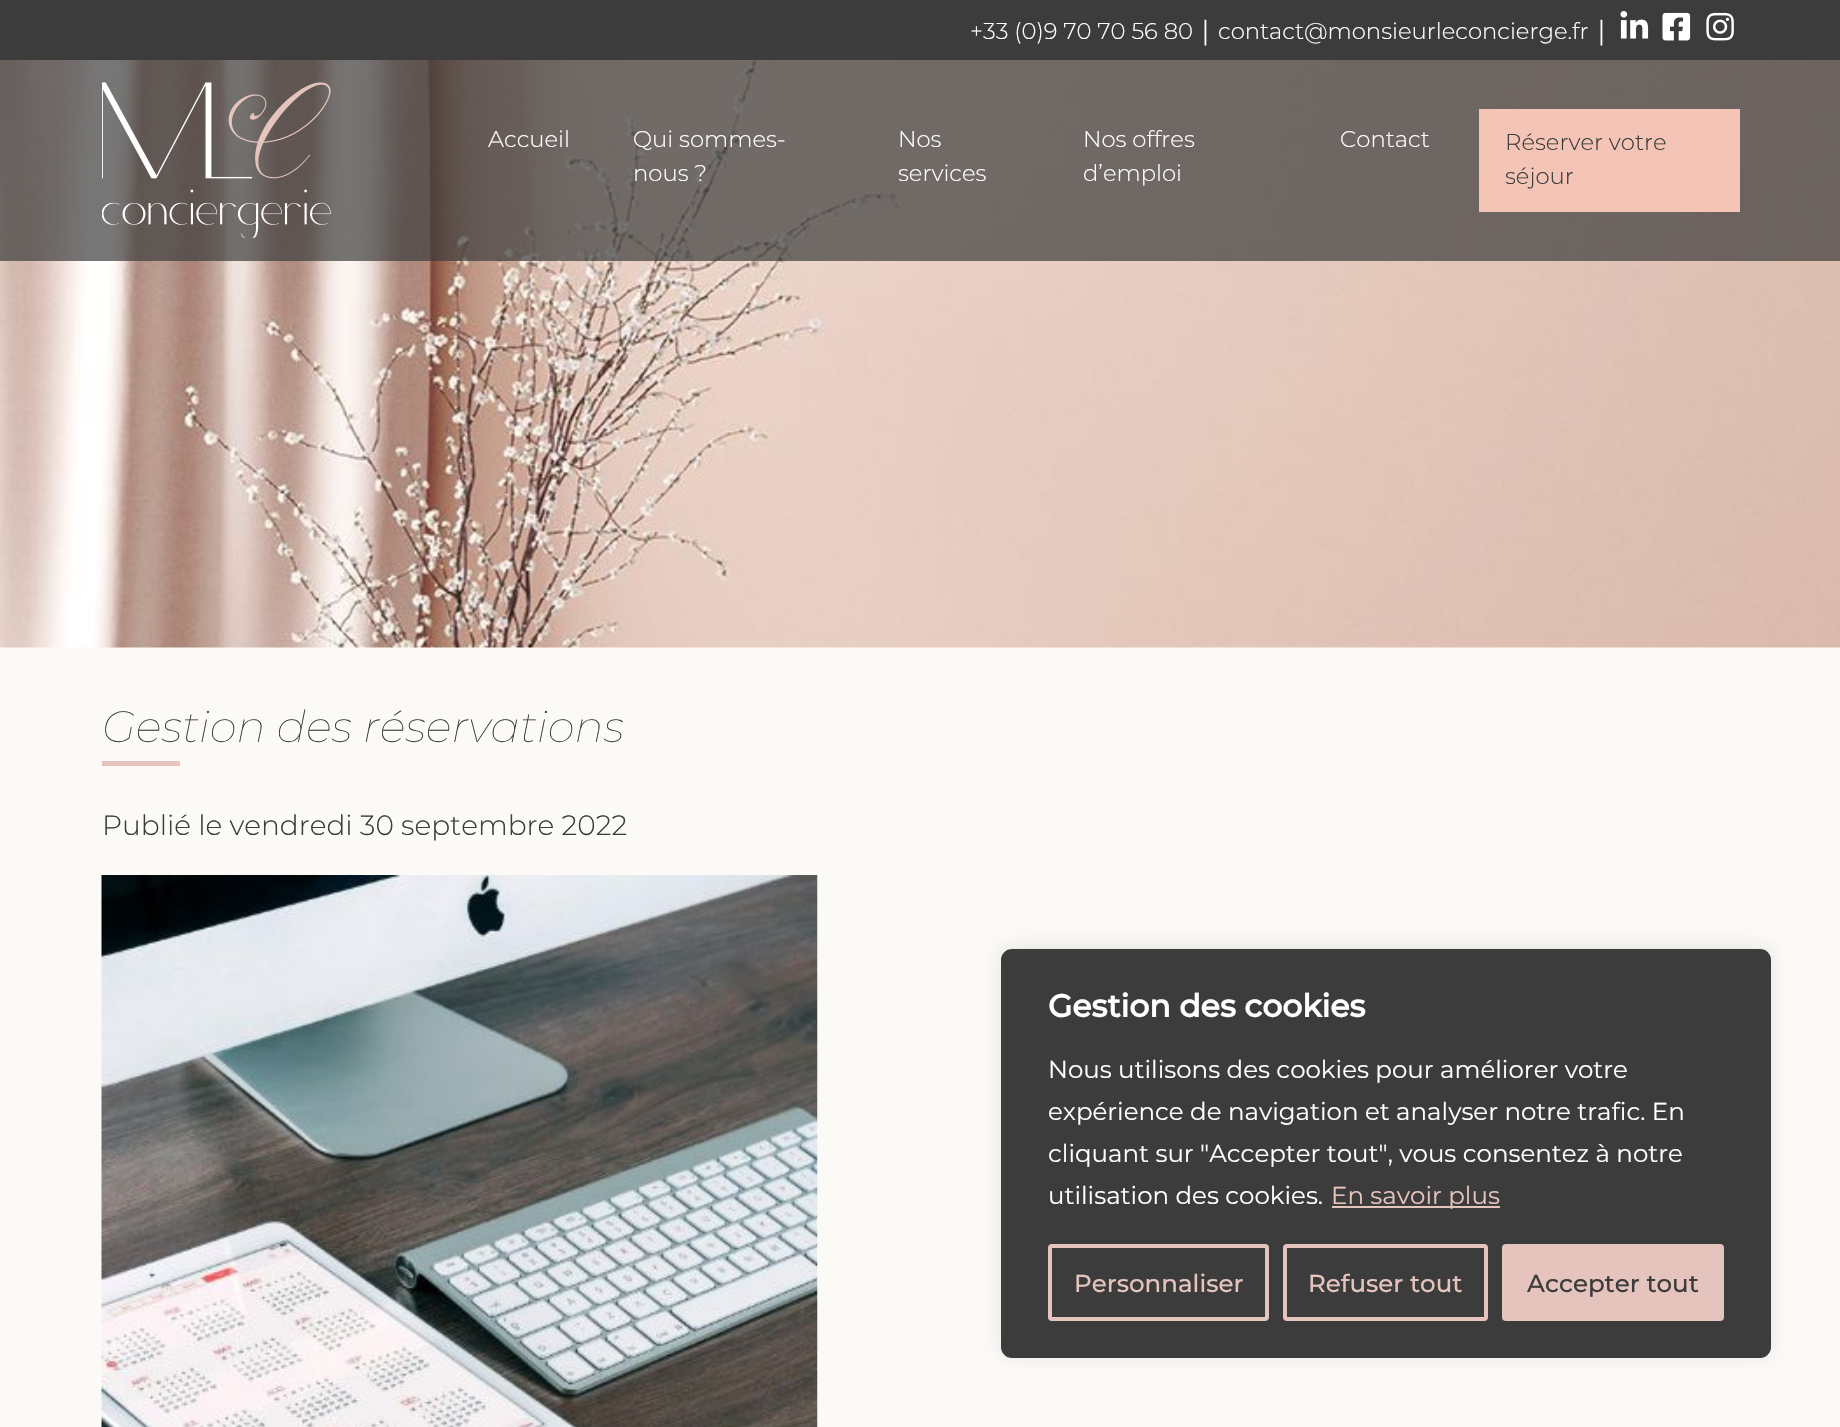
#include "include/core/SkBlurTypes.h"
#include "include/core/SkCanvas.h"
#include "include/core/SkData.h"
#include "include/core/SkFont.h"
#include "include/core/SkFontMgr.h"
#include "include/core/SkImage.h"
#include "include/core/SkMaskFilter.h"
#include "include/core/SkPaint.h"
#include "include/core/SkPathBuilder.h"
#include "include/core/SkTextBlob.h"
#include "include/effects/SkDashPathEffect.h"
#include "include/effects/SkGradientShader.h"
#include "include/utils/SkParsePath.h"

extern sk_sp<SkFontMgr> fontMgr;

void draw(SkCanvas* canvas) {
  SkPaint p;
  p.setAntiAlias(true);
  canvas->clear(SkColorSetRGB(252, 250, 247));
  p.setColor(SkColorSetRGB(60, 60, 60));
  canvas->drawRect(SkRect::MakeLTRB(0, 0, 1840, 60), p);
  canvas->drawImageRect(SkImages::DeferredFromEncodedData(SkData::MakeFromFileName("images/1.png")), SkRect::MakeLTRB(1620, 11, 1649, 39), SkSamplingOptions());
  canvas->drawImageRect(SkImages::DeferredFromEncodedData(SkData::MakeFromFileName("images/2.png")), SkRect::MakeLTRB(1662, 12, 1691, 41), SkSamplingOptions());
  canvas->drawImageRect(SkImages::DeferredFromEncodedData(SkData::MakeFromFileName("images/3.png")), SkRect::MakeLTRB(1706, 12, 1734, 41), SkSamplingOptions());
  canvas->drawImageRect(SkImages::DeferredFromEncodedData(SkData::MakeFromFileName("images/5.png")), SkRect::MakeLTRB(0, 60, 1840, 648), SkSamplingOptions());
  p.setColor(SkColorSetARGB(179, 60, 60, 60));
  canvas->drawRect(SkRect::MakeLTRB(0, 60, 1840, 261), p);
  canvas->drawImageRect(SkImages::DeferredFromEncodedData(SkData::MakeFromFileName("images/4.png")), SkRect::MakeLTRB(102, 82, 331, 238), SkSamplingOptions());
  p.setColor(SkColorSetRGB(244, 197, 183));
  canvas->drawRect(SkRect::MakeLTRB(1479, 109, 1740, 212), p);
  p.setColor(SkColorSetRGB(228, 196, 189));
  canvas->drawRect(SkRect::MakeLTRB(102, 761, 180, 766), p);
  canvas->drawImageRect(SkImages::DeferredFromEncodedData(SkData::MakeFromFileName("images/6.png")), SkRect::MakeLTRB(101, 875, 818, 1427), SkSamplingOptions());
  p.setColor(SkColorSetARGB(77, 172, 171, 171));
  p.setMaskFilter(SkMaskFilter::MakeBlur(kNormal_SkBlurStyle, 9));
  canvas->drawRoundRect(SkRect::MakeLTRB(1001, 947, 1771, 1356), 11, 11, p);
  p.setMaskFilter(nullptr);
  p.setColor(SkColorSetRGB(60, 60, 60));
  canvas->drawRoundRect(SkRect::MakeLTRB(1002, 950, 1770, 1357), 10, 10, p);
  p.setStyle(SkPaint::kStroke_Style);
  p.setStrokeWidth(2);
  canvas->drawRoundRect(SkRect::MakeLTRB(1002, 950, 1770, 1357), 10, 10, p);
  p.setStyle(SkPaint::kFill_Style);
  p.setColor(SkColorSetRGB(228, 196, 189));
  canvas->drawRect(SkRect::MakeLTRB(1332, 1206, 1500, 1208), p);
  p.setStyle(SkPaint::kStroke_Style);
  p.setStrokeWidth(4);
  canvas->drawRoundRect(SkRect::MakeLTRB(1050, 1246, 1267, 1319), 2, 2, p);
  canvas->drawRoundRect(SkRect::MakeLTRB(1285, 1246, 1486, 1319), 2, 2, p);
  p.setStyle(SkPaint::kFill_Style);
  canvas->drawRoundRect(SkRect::MakeLTRB(1504, 1246, 1722, 1319), 2, 2, p);
  p.setStyle(SkPaint::kStroke_Style);
  canvas->drawRoundRect(SkRect::MakeLTRB(1504, 1246, 1722, 1319), 2, 2, p);
  SkFont font1(fontMgr->matchFamilyStyle("Montserrat", SkFontStyle(300, SkFontStyle::kNormal_Width, SkFontStyle::kUpright_Slant)), 22.75f);
  font1.setSubpixel(true);
  p.setStyle(SkPaint::kFill_Style);
  p.setColor(SK_ColorWHITE);
  canvas->drawString("+33 (0)9 70 70 56 80", 970, 39, font1, p);
  SkFont font2(fontMgr->matchFamilyStyle("Liberation Serif", SkFontStyle::Normal()), 21);
  font2.setSubpixel(true);
  canvas->drawString("│", 1198, 39, font2, p);
  canvas->drawString("contact@monsieurleconcierge.fr", 1218, 39, font1, p);
  canvas->drawString("│", 1594, 39, font2, p);
  canvas->drawString("Accueil", 488, 147, font1, p);
  canvas->drawString("Qui sommes-", 633, 147, font1, p);
  canvas->drawString("nous ?", 633, 181, font1, p);
  canvas->drawString("Nos", 898, 147, font1, p);
  canvas->drawString("services", 898, 181, font1, p);
  canvas->drawString("Nos offres", 1083, 147, font1, p);
  canvas->drawString("d’emploi", 1083, 181, font1, p);
  canvas->drawString("Contact", 1340, 147, font1, p);
  p.setColor(SkColorSetRGB(60, 60, 60));
  canvas->drawString("Réserver votre", 1505, 150, font1, p);
  canvas->drawString("séjour", 1505, 184, font1, p);
  SkFont font3(fontMgr->matchFamilyStyle("Montserrat", SkFontStyle(100, SkFontStyle::kNormal_Width, SkFontStyle::kItalic_Slant)), 43.75f);
  font3.setSubpixel(true);
  canvas->drawString("Gestion des réservations", 102, 742, font3, p);
  SkFont font4(fontMgr->matchFamilyStyle("Montserrat", SkFontStyle(300, SkFontStyle::kNormal_Width, SkFontStyle::kUpright_Slant)), 28);
  font4.setSubpixel(true);
  canvas->drawString("Publié le vendredi 30 septembre 2022", 102, 835, font4, p);
  SkFont font5(fontMgr->matchFamilyStyle("Montserrat", SkFontStyle::Bold()), 31.5f);
  font5.setSubpixel(true);
  p.setColor(SK_ColorWHITE);
  canvas->drawString("Gestion des cookies", 1048, 1017, font5, p);
  SkFont font6(fontMgr->matchFamilyStyle("Montserrat", SkFontStyle::Normal()), 24.5f);
  font6.setSubpixel(true);
  canvas->drawString("Nous utilisons des cookies pour améliorer votre", 1048, 1078, font6, p);
  canvas->drawString("expérience de navigation et analyser notre trafic. En", 1048, 1120, font6, p);
  canvas->drawString("cliquant sur \"Accepter tout\", vous consentez à notre", 1048, 1162, font6, p);
  canvas->drawString("utilisation des cookies.", 1048, 1204, font6, p);
  p.setColor(SkColorSetRGB(228, 196, 189));
  canvas->drawString("En savoir plus", 1331, 1204, font6, p);
  SkFont font7(fontMgr->matchFamilyStyle("Montserrat", SkFontStyle(500, SkFontStyle::kNormal_Width, SkFontStyle::kUpright_Slant)), 24.5f);
  font7.setSubpixel(true);
  canvas->drawString("Personnaliser", 1074, 1292, font7, p);
  canvas->drawString("Refuser tout", 1308, 1292, font7, p);
  p.setColor(SkColorSetRGB(60, 60, 60));
  canvas->drawString("Accepter tout", 1527, 1292, font7, p);
}
